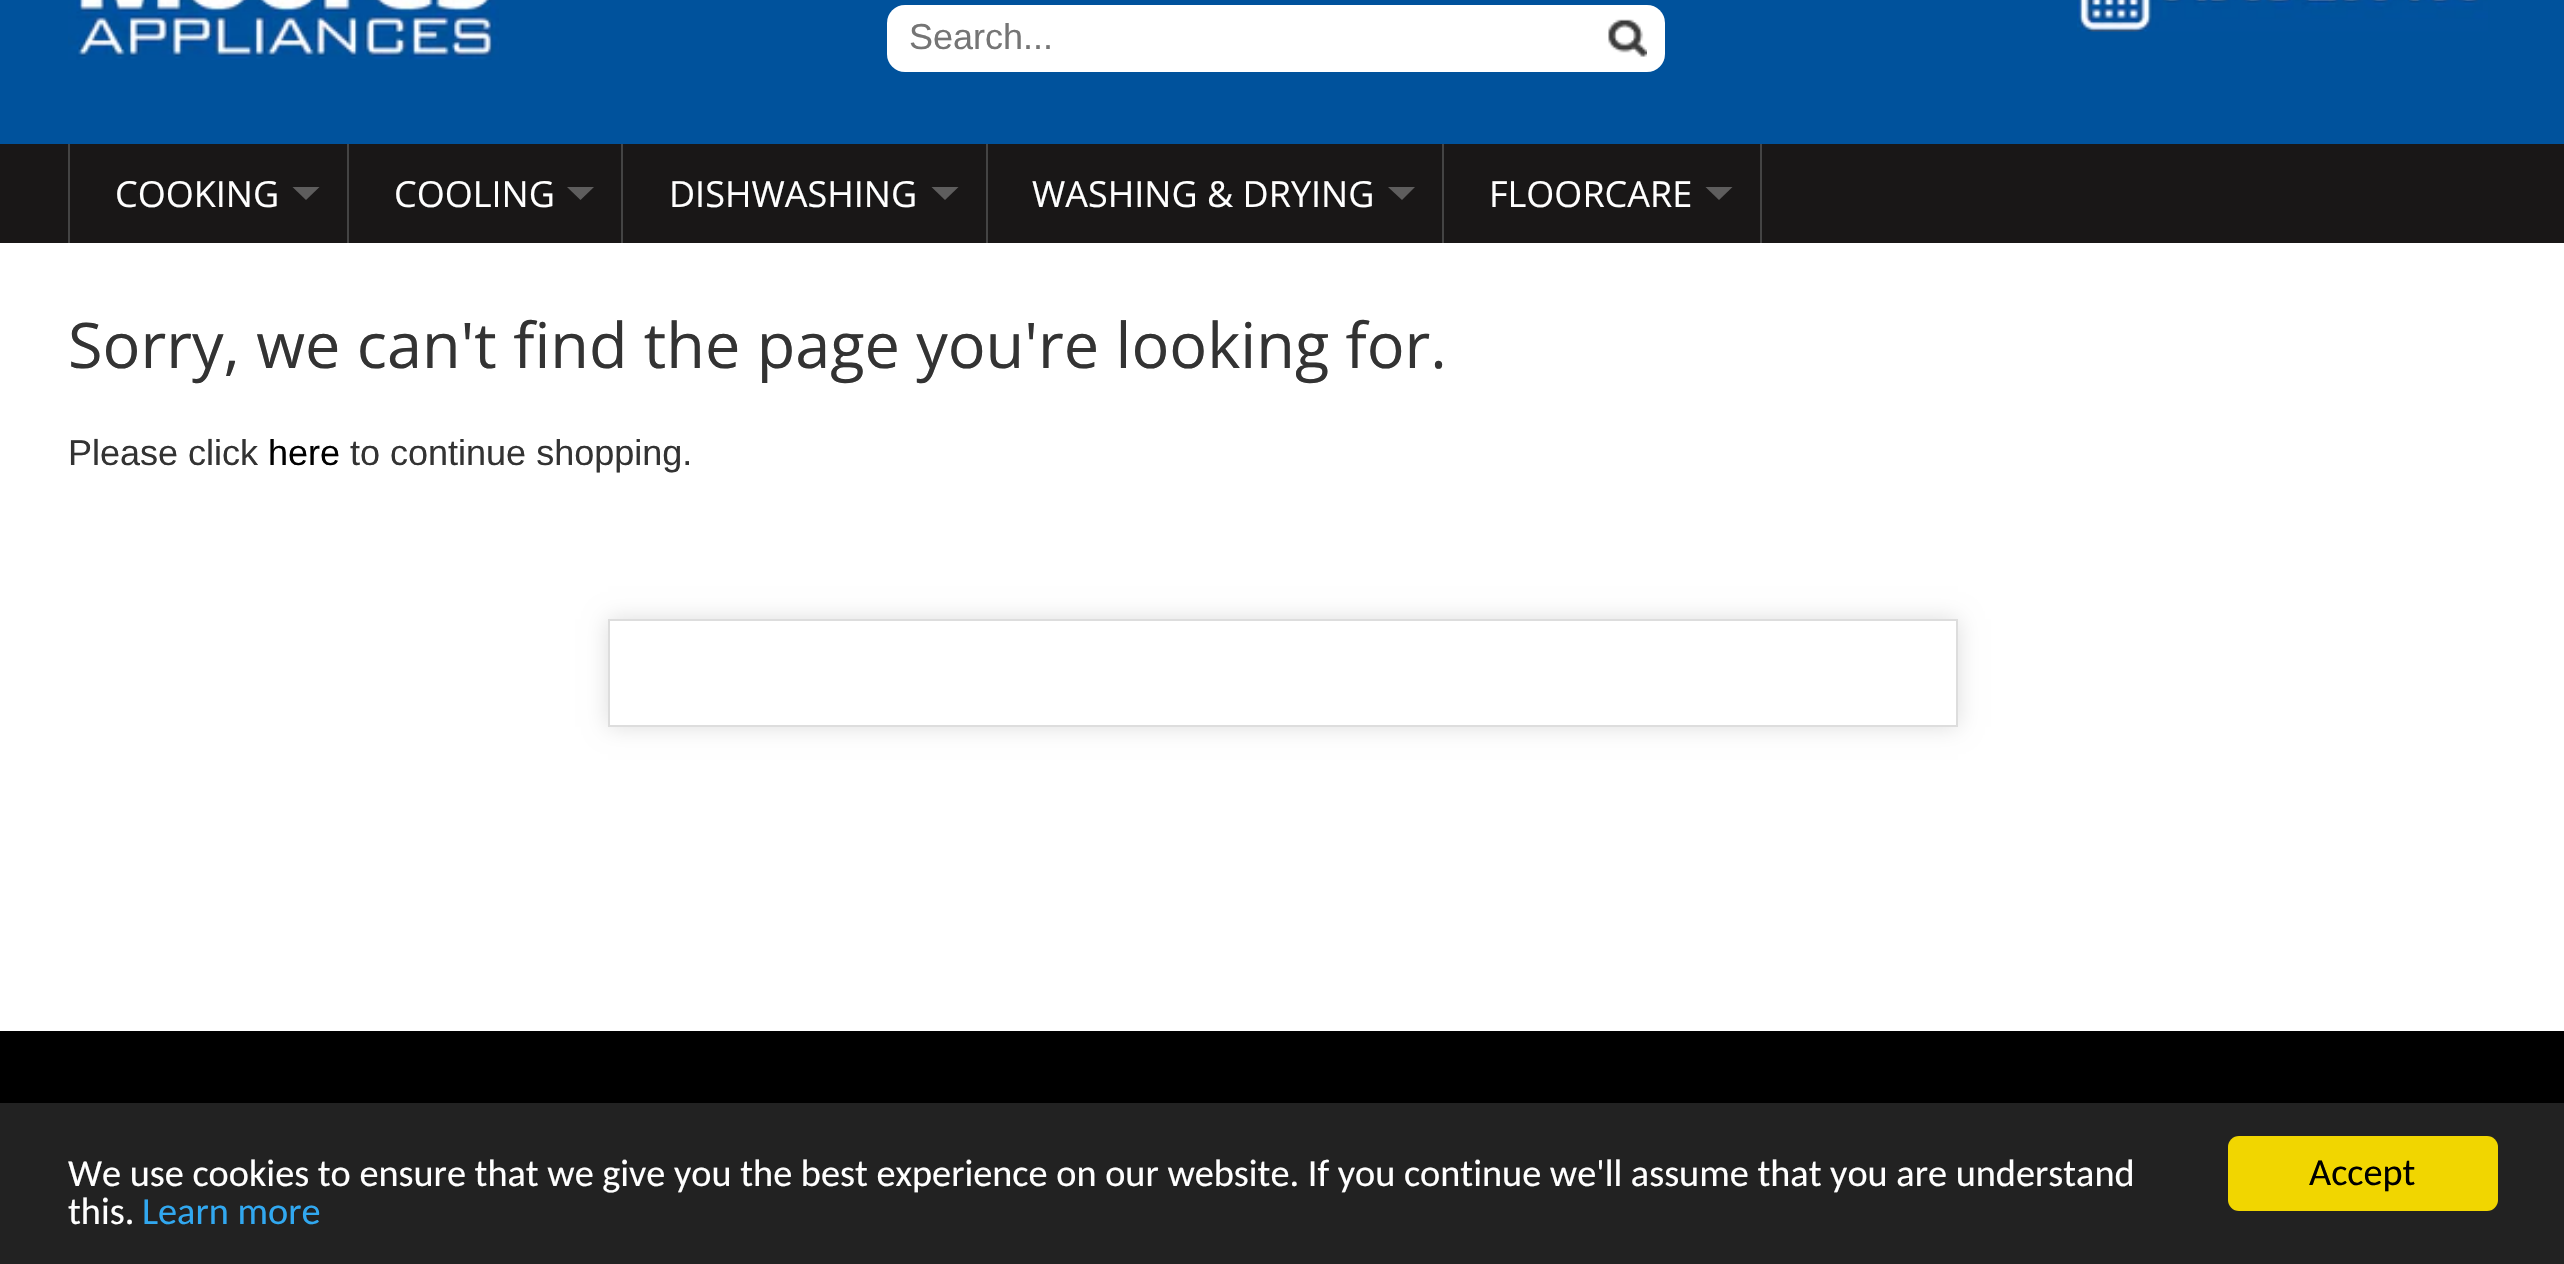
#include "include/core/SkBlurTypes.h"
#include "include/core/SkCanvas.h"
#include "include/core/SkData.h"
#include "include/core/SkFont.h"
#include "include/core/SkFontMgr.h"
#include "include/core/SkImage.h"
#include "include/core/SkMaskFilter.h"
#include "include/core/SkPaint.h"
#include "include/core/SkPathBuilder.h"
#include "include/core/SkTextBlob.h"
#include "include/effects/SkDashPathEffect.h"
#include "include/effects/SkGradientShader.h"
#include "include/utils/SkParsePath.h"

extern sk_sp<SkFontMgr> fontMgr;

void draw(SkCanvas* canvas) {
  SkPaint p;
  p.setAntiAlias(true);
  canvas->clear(SkColorSetRGB(25, 23, 23));
  p.setColor(SkColorSetRGB(0, 82, 156));
  canvas->drawRect(SkRect::MakeLTRB(0, 0, 2564, 144), p);
  canvas->drawImageRect(SkImages::DeferredFromEncodedData(SkData::MakeFromFileName("images/1.png")), SkRect::MakeLTRB(68, 0, 499, 60), SkSamplingOptions());
  canvas->drawImageRect(SkImages::DeferredFromEncodedData(SkData::MakeFromFileName("images/2.png")), SkRect::MakeLTRB(2077, 0, 2488, 32), SkSamplingOptions());
  p.setColor(SK_ColorWHITE);
  canvas->drawRoundRect(SkRect::MakeLTRB(887, 5, 1665, 72), 18, 18, p);
  canvas->drawImageRect(SkImages::DeferredFromEncodedData(SkData::MakeFromFileName("images/3.png")), SkRect::MakeLTRB(1608, 19, 1647, 57), SkSamplingOptions());
  p.setColor(SkColorSetRGB(68, 68, 68));
  canvas->drawRect(SkRect::MakeLTRB(68, 144, 70, 243), p);
  canvas->drawRect(SkRect::MakeLTRB(347, 144, 349, 243), p);
  p.setColor(SkColorSetRGB(94, 93, 93));
  canvas->drawPath(SkPathBuilder().moveTo(292.5f, 187).lineTo(319.5f, 187).lineTo(306, 200).close().detach(), p);
  p.setColor(SkColorSetRGB(68, 68, 68));
  canvas->drawRect(SkRect::MakeLTRB(621, 144, 623, 243), p);
  p.setColor(SkColorSetRGB(94, 93, 93));
  canvas->drawPath(SkPathBuilder().moveTo(567, 187).lineTo(594, 187).lineTo(580.5f, 200).close().detach(), p);
  p.setColor(SkColorSetRGB(68, 68, 68));
  canvas->drawRect(SkRect::MakeLTRB(986, 144, 988, 243), p);
  p.setColor(SkColorSetRGB(94, 93, 93));
  canvas->drawPath(SkPathBuilder().moveTo(931.5f, 187).lineTo(958.5f, 187).lineTo(945, 200).close().detach(), p);
  p.setColor(SkColorSetRGB(68, 68, 68));
  canvas->drawRect(SkRect::MakeLTRB(1442, 144, 1444, 243), p);
  p.setColor(SkColorSetRGB(94, 93, 93));
  canvas->drawPath(SkPathBuilder().moveTo(1388, 187).lineTo(1415, 187).lineTo(1402, 200).close().detach(), p);
  p.setColor(SkColorSetRGB(68, 68, 68));
  canvas->drawRect(SkRect::MakeLTRB(1760, 144, 1762, 243), p);
  p.setColor(SkColorSetRGB(94, 93, 93));
  canvas->drawPath(SkPathBuilder().moveTo(1705.5f, 187).lineTo(1732.5f, 187).lineTo(1719, 200).close().detach(), p);
  p.setColor(SK_ColorWHITE);
  canvas->drawRect(SkRect::MakeLTRB(0, 243, 2564, 1031), p);
  p.setColor(SkColorSetRGB(221, 221, 221));
  p.setMaskFilter(SkMaskFilter::MakeBlur(kNormal_SkBlurStyle, 11));
  canvas->drawRect(SkRect::MakeLTRB(608, 619, 1958, 727), p);
  p.setMaskFilter(nullptr);
  p.setColor(SK_ColorWHITE);
  canvas->drawRect(SkRect::MakeLTRB(609, 620, 1957, 726), p);
  p.setStyle(SkPaint::kStroke_Style);
  p.setStrokeWidth(2);
  p.setColor(SkColorSetRGB(221, 221, 221));
  canvas->drawRect(SkRect::MakeLTRB(609, 620, 1957, 726), p);
  p.setStyle(SkPaint::kFill_Style);
  p.setColor(SK_ColorBLACK);
  canvas->drawRect(SkRect::MakeLTRB(0, 1031, 2564, 1103), p);
  p.setColor(SkColorSetRGB(34, 34, 34));
  canvas->drawRect(SkRect::MakeLTRB(0, 1103, 2564, 1264), p);
  p.setColor(SkColorSetRGB(241, 214, 0));
  canvas->drawRoundRect(SkRect::MakeLTRB(2228, 1136, 2498, 1211), 11, 11, p);
  SkFont font1(fontMgr->matchFamilyStyle("Liberation Sans", SkFontStyle::Normal()), 36);
  font1.setSubpixel(true);
  p.setColor(SkColorSetRGB(117, 117, 117));
  canvas->drawString("Search...", 909, 49, font1, p);
  SkFont font2(fontMgr->matchFamilyStyle("Open Sans", SkFontStyle::Normal()), 36);
  font2.setSubpixel(true);
  p.setColor(SK_ColorWHITE);
  canvas->drawString("COOKING", 115, 207, font2, p);
  canvas->drawString("COOLING", 394, 207, font2, p);
  canvas->drawString("DISHWASHING", 669, 207, font2, p);
  canvas->drawString("WASHING & DRYING", 1032, 207, font2, p);
  canvas->drawString("FLOORCARE", 1489, 207, font2, p);
  SkFont font3(fontMgr->matchFamilyStyle("Open Sans", SkFontStyle::Normal()), 63);
  font3.setSubpixel(true);
  p.setColor(SkColorSetRGB(51, 51, 51));
  canvas->drawString("Sorry, we can't find the page you're looking for.", 68, 368, font3, p);
  canvas->drawString("Please click", 68, 465, font1, p);
  p.setColor(SK_ColorBLACK);
  canvas->drawString("here", 268, 465, font1, p);
  p.setColor(SkColorSetRGB(51, 51, 51));
  canvas->drawString("to continue shopping.", 350, 465, font1, p);
  SkFont font4(fontMgr->matchFamilyStyle("Carlito", SkFontStyle::Normal()), 38.25f);
  font4.setSubpixel(true);
  p.setColor(SK_ColorWHITE);
  canvas->drawString("We use cookies to ensure that we give you the best experience on our website. If you continue we'll assume that you are understand", 68, 1186, font4, p);
  canvas->drawString("this.", 68, 1224, font4, p);
  p.setColor(SkColorSetRGB(49, 168, 240));
  canvas->drawString("Learn more", 142, 1224, font4, p);
  p.setColor(SK_ColorBLACK);
  canvas->drawString("Accept", 2309, 1185, font4, p);
}
